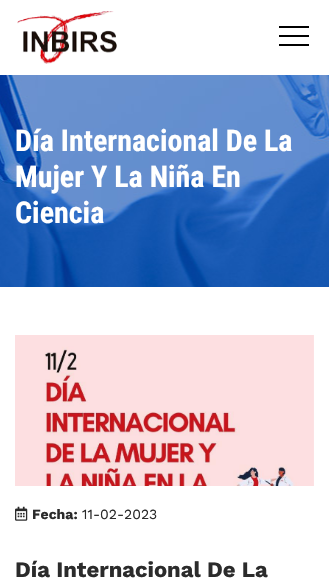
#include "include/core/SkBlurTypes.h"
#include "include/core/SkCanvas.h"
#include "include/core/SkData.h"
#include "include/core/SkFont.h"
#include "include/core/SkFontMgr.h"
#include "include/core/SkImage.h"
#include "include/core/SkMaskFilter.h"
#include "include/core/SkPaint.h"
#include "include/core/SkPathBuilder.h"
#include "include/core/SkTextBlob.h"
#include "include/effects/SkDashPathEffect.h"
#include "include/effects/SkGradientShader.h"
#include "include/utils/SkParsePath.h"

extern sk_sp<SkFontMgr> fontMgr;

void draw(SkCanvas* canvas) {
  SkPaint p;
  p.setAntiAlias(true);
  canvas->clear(SK_ColorWHITE);
  canvas->drawImageRect(SkImages::DeferredFromEncodedData(SkData::MakeFromFileName("images/1.png")), SkRect::MakeLTRB(17, 11, 117, 64), SkSamplingOptions());
  p.setColor(SK_ColorBLACK);
  canvas->drawRect(SkRect::MakeLTRB(279, 26, 309, 28), p);
  canvas->drawRect(SkRect::MakeLTRB(279, 35, 309, 37), p);
  canvas->drawRect(SkRect::MakeLTRB(279, 44, 309, 46), p);
  canvas->drawImageRect(SkImages::DeferredFromEncodedData(SkData::MakeFromFileName("images/2.png")), SkRect::MakeLTRB(0, 75, 329, 287), SkSamplingOptions());
  canvas->drawImageRect(SkImages::DeferredFromEncodedData(SkData::MakeFromFileName("images/3.png")), SkRect::MakeLTRB(15, 335, 314, 486), SkSamplingOptions());
  canvas->drawImageRect(SkImages::DeferredFromEncodedData(SkData::MakeFromFileName("images/4.png")), SkRect::MakeLTRB(15, 506, 28, 521), SkSamplingOptions());
  SkFont font1(fontMgr->matchFamilyStyle("Roboto Condensed", SkFontStyle::Bold()), 30);
  font1.setSubpixel(true);
  p.setColor(SK_ColorWHITE);
  canvas->drawString("Día Internacional De La", 15, 151, font1, p);
  canvas->drawString("Mujer Y La Niña En", 15, 187, font1, p);
  canvas->drawString("Ciencia", 15, 223, font1, p);
  SkFont font2(fontMgr->matchFamilyStyle("Work Sans", SkFontStyle::Bold()), 14);
  font2.setSubpixel(true);
  p.setColor(SkColorSetRGB(43, 43, 43));
  canvas->drawString("Fecha:", 32, 519, font2, p);
  SkFont font3(fontMgr->matchFamilyStyle("Work Sans", SkFontStyle::Normal()), 14);
  font3.setSubpixel(true);
  canvas->drawString("11-02-2023", 82, 519, font3, p);
  SkFont font4(fontMgr->matchFamilyStyle("Work Sans", SkFontStyle::Bold()), 22);
  font4.setSubpixel(true);
  canvas->drawString("Día Internacional De La", 15, 577, font4, p);
}
